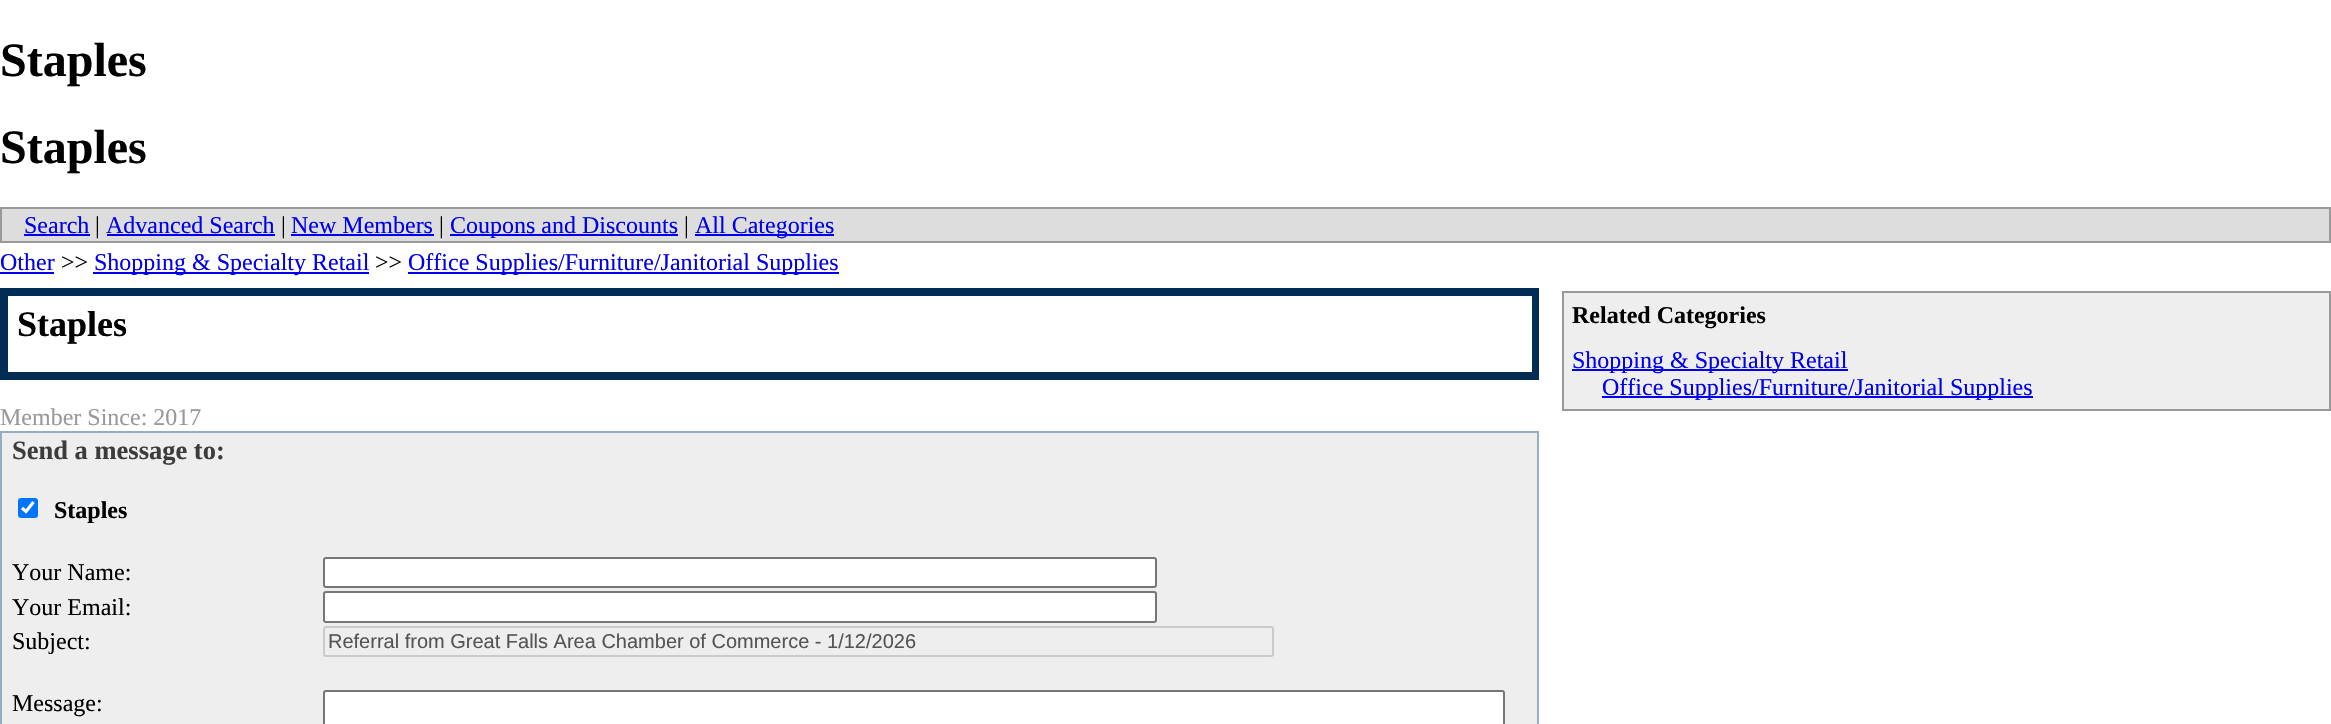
#include "include/core/SkBlurTypes.h"
#include "include/core/SkCanvas.h"
#include "include/core/SkData.h"
#include "include/core/SkFont.h"
#include "include/core/SkFontMgr.h"
#include "include/core/SkImage.h"
#include "include/core/SkMaskFilter.h"
#include "include/core/SkPaint.h"
#include "include/core/SkPathBuilder.h"
#include "include/core/SkTextBlob.h"
#include "include/effects/SkDashPathEffect.h"
#include "include/effects/SkGradientShader.h"
#include "include/utils/SkParsePath.h"

extern sk_sp<SkFontMgr> fontMgr;

void draw(SkCanvas* canvas) {
  SkPaint p;
  p.setAntiAlias(true);
  canvas->clear(SK_ColorWHITE);
  p.setColor(SkColorSetRGB(221, 221, 221));
  canvas->drawRect(SkRect::MakeLTRB(1, 208, 2330, 242), p);
  p.setStyle(SkPaint::kStroke_Style);
  p.setStrokeWidth(2);
  p.setColor(SkColorSetRGB(153, 153, 153));
  canvas->drawRect(SkRect::MakeLTRB(1, 208, 2330, 242), p);
  p.setStyle(SkPaint::kFill_Style);
  p.setColor(SkColorSetRGB(0, 0, 238));
  canvas->drawRect(SkRect::MakeLTRB(24, 234, 90, 236), p);
  canvas->drawRect(SkRect::MakeLTRB(107, 234, 275, 236), p);
  canvas->drawRect(SkRect::MakeLTRB(291, 234, 434, 236), p);
  canvas->drawRect(SkRect::MakeLTRB(450, 234, 678, 236), p);
  canvas->drawRect(SkRect::MakeLTRB(695, 234, 834, 236), p);
  canvas->drawRect(SkRect::MakeLTRB(0, 272, 54, 274), p);
  canvas->drawRect(SkRect::MakeLTRB(93, 272, 369, 274), p);
  canvas->drawRect(SkRect::MakeLTRB(408, 272, 839, 274), p);
  p.setColor(SkColorSetRGB(1, 45, 84));
  canvas->drawRect(SkRect::MakeLTRB(0, 288, 1539, 380), p);
  p.setColor(SK_ColorWHITE);
  canvas->drawRect(SkRect::MakeLTRB(8, 296, 1532, 372), p);
  p.setColor(SkColorSetRGB(238, 238, 238));
  canvas->drawRect(SkRect::MakeLTRB(1, 432, 1538, 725), p);
  p.setStyle(SkPaint::kStroke_Style);
  p.setColor(SkColorSetRGB(150, 172, 195));
  canvas->drawRect(SkRect::MakeLTRB(1, 432, 1538, 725), p);
  p.setStyle(SkPaint::kFill_Style);
  p.setColor(SkColorSetRGB(0, 117, 255));
  canvas->drawRoundRect(SkRect::MakeLTRB(18, 498, 38, 518), 3, 3, p);
  p.setStyle(SkPaint::kStroke_Style);
  p.setStrokeWidth(3.1f);
  p.setColor(SK_ColorWHITE);
  canvas->drawPath(SkPathBuilder().moveTo(22, 508).lineTo(26, 511.5f).lineTo(33.5f, 502).detach(), p);
  p.setStyle(SkPaint::kFill_Style);
  canvas->drawRoundRect(SkRect::MakeLTRB(324, 558, 1156, 587), 2, 2, p);
  p.setStyle(SkPaint::kStroke_Style);
  p.setStrokeWidth(2);
  p.setColor(SkColorSetRGB(118, 118, 118));
  canvas->drawRoundRect(SkRect::MakeLTRB(324, 558, 1156, 587), 2, 2, p);
  p.setStyle(SkPaint::kFill_Style);
  p.setColor(SK_ColorWHITE);
  canvas->drawRoundRect(SkRect::MakeLTRB(324, 592, 1156, 622), 2, 2, p);
  p.setStyle(SkPaint::kStroke_Style);
  p.setColor(SkColorSetRGB(118, 118, 118));
  canvas->drawRoundRect(SkRect::MakeLTRB(324, 592, 1156, 622), 2, 2, p);
  p.setColor(SkColorSetRGB(202, 202, 202));
  canvas->drawRoundRect(SkRect::MakeLTRB(324, 627, 1273, 656), 2, 2, p);
  p.setStyle(SkPaint::kFill_Style);
  p.setColor(SK_ColorWHITE);
  canvas->drawRoundRect(SkRect::MakeLTRB(324, 691, 1504, 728), 2, 2, p);
  p.setStyle(SkPaint::kStroke_Style);
  p.setColor(SkColorSetRGB(118, 118, 118));
  canvas->drawRoundRect(SkRect::MakeLTRB(324, 691, 1504, 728), 2, 2, p);
  p.setStyle(SkPaint::kFill_Style);
  p.setColor(SkColorSetRGB(238, 238, 238));
  canvas->drawRect(SkRect::MakeLTRB(1563, 292, 2330, 410), p);
  p.setStyle(SkPaint::kStroke_Style);
  p.setColor(SkColorSetRGB(153, 153, 153));
  canvas->drawRect(SkRect::MakeLTRB(1563, 292, 2330, 410), p);
  p.setStyle(SkPaint::kFill_Style);
  p.setColor(SkColorSetRGB(0, 0, 238));
  canvas->drawRect(SkRect::MakeLTRB(1572, 369, 1848, 371), p);
  canvas->drawRect(SkRect::MakeLTRB(1602, 396, 2033, 398), p);
  SkFont font1(fontMgr->matchFamilyStyle("Liberation Serif", SkFontStyle::Bold()), 48);
  font1.setSubpixel(true);
  p.setColor(SK_ColorBLACK);
  canvas->drawString("Staples", 0, 76, font1, p);
  canvas->drawString("Staples", 0, 163, font1, p);
  SkFont font2(fontMgr->matchFamilyStyle("Liberation Serif", SkFontStyle::Normal()), 24);
  font2.setSubpixel(true);
  p.setColor(SkColorSetRGB(0, 0, 238));
  canvas->drawString("Search", 24, 233, font2, p);
  p.setColor(SK_ColorBLACK);
  canvas->drawString("|", 95, 233, font2, p);
  p.setColor(SkColorSetRGB(0, 0, 238));
  canvas->drawString("Advanced Search", 106, 233, font2, p);
  p.setColor(SK_ColorBLACK);
  canvas->drawString("|", 281, 233, font2, p);
  p.setColor(SkColorSetRGB(0, 0, 238));
  canvas->drawString("New Members", 291, 233, font2, p);
  p.setColor(SK_ColorBLACK);
  canvas->drawString("|", 439, 233, font2, p);
  p.setColor(SkColorSetRGB(0, 0, 238));
  canvas->drawString("Coupons and Discounts", 450, 233, font2, p);
  p.setColor(SK_ColorBLACK);
  canvas->drawString("|", 684, 233, font2, p);
  p.setColor(SkColorSetRGB(0, 0, 238));
  canvas->drawString("All Categories", 695, 233, font2, p);
  canvas->drawString("Other", 0, 270, font2, p);
  p.setColor(SK_ColorBLACK);
  canvas->drawString(">>", 61, 270, font2, p);
  p.setColor(SkColorSetRGB(0, 0, 238));
  canvas->drawString("Shopping & Specialty Retail", 94, 270, font2, p);
  p.setColor(SK_ColorBLACK);
  canvas->drawString(">>", 375, 270, font2, p);
  p.setColor(SkColorSetRGB(0, 0, 238));
  canvas->drawString("Office Supplies/Furniture/Janitorial Supplies", 408, 270, font2, p);
  SkFont font3(fontMgr->matchFamilyStyle("Liberation Serif", SkFontStyle::Bold()), 36);
  font3.setSubpixel(true);
  p.setColor(SK_ColorBLACK);
  canvas->drawString("Staples", 17, 336, font3, p);
  p.setColor(SkColorSetRGB(153, 153, 153));
  canvas->drawString("Member Since: 2017", 0, 425, font2, p);
  SkFont font4(fontMgr->matchFamilyStyle("Liberation Serif", SkFontStyle::Bold()), 26.5f);
  font4.setSubpixel(true);
  p.setColor(SkColorSetRGB(60, 60, 60));
  canvas->drawString("Send a message to:", 12, 459, font4, p);
  SkFont font5(fontMgr->matchFamilyStyle("Liberation Serif", SkFontStyle::Bold()), 24);
  font5.setSubpixel(true);
  p.setColor(SK_ColorBLACK);
  canvas->drawString("Staples", 54, 518, font5, p);
  canvas->drawString("Your Name:", 12, 580, font2, p);
  canvas->drawString("Your Email:", 12, 615, font2, p);
  canvas->drawString("Subject:", 12, 649, font2, p);
  SkFont font6(fontMgr->matchFamilyStyle("Liberation Sans", SkFontStyle::Normal()), 20);
  font6.setSubpixel(true);
  p.setColor(SkColorSetRGB(84, 84, 84));
  canvas->drawString("Referral from Great Falls Area Chamber of Commerce - 1/12/2026", 328, 648, font6, p);
  p.setColor(SK_ColorBLACK);
  canvas->drawString("Message:", 12, 711, font2, p);
  canvas->drawString("Related Categories", 1572, 323, font5, p);
  p.setColor(SkColorSetRGB(0, 0, 238));
  canvas->drawString("Shopping & Specialty Retail", 1572, 368, font2, p);
  canvas->drawString("Office Supplies/Furniture/Janitorial Supplies", 1602, 395, font2, p);
}
